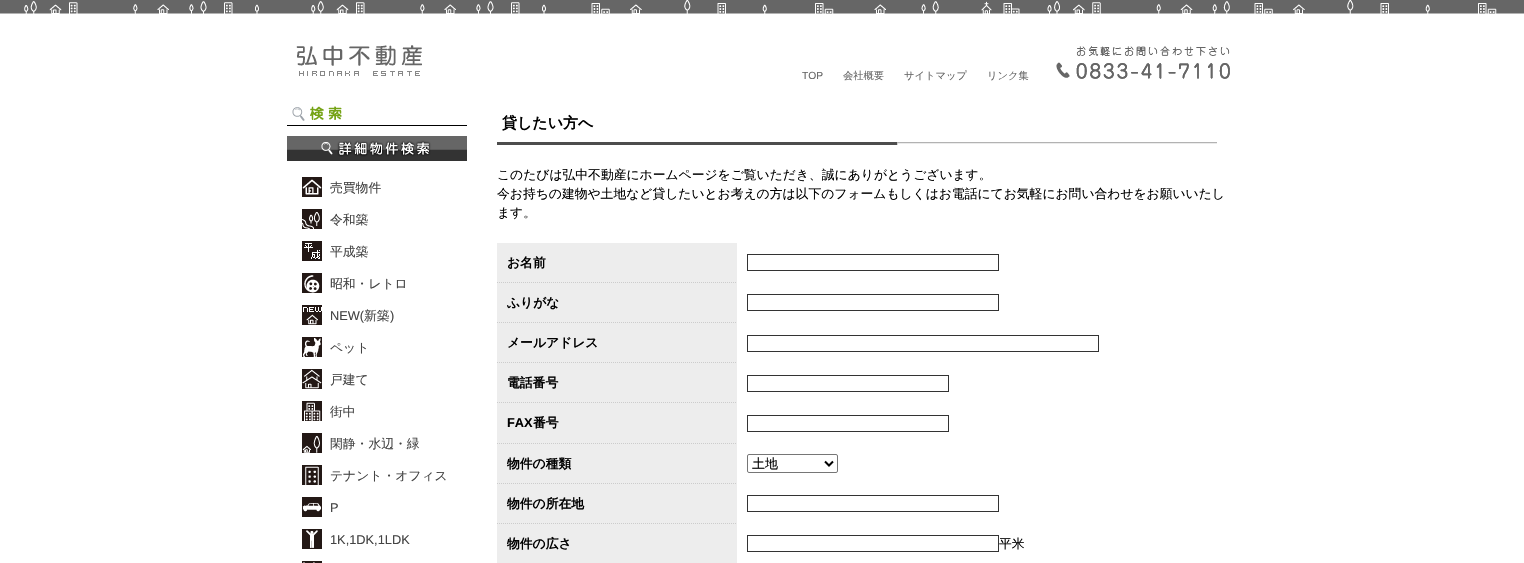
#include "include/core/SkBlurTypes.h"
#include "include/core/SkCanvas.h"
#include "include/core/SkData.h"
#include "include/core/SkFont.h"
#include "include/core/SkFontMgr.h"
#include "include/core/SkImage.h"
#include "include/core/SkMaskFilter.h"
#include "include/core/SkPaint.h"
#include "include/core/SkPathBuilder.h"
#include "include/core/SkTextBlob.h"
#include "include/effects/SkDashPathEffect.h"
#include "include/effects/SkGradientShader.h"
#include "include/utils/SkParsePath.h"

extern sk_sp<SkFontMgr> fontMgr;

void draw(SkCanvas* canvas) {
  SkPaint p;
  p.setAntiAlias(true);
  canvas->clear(SK_ColorWHITE);
  canvas->drawImageRect(SkImages::DeferredFromEncodedData(SkData::MakeFromFileName("images/1.png")), SkRect::MakeLTRB(0, 0, 1524, 14), SkSamplingOptions());
  canvas->drawImageRect(SkImages::DeferredFromEncodedData(SkData::MakeFromFileName("images/2.png")), SkRect::MakeLTRB(304, 0, 1230, 79), SkSamplingOptions());
  canvas->drawImageRect(SkImages::DeferredFromEncodedData(SkData::MakeFromFileName("images/3.png")), SkRect::MakeLTRB(296, 45, 422, 76), SkSamplingOptions());
  p.setColor(SK_ColorBLACK);
  canvas->drawRect(SkRect::MakeLTRB(287, 125, 467, 126), p);
  canvas->drawImageRect(SkImages::DeferredFromEncodedData(SkData::MakeFromFileName("images/4.png")), SkRect::MakeLTRB(292, 106, 342, 121), SkSamplingOptions());
  canvas->drawImageRect(SkImages::DeferredFromEncodedData(SkData::MakeFromFileName("images/5.png")), SkRect::MakeLTRB(287, 136, 467, 161), SkSamplingOptions());
  canvas->drawImageRect(SkImages::DeferredFromEncodedData(SkData::MakeFromFileName("images/6.png")), SkRect::MakeLTRB(302, 177, 322, 197), SkSamplingOptions());
  canvas->drawImageRect(SkImages::DeferredFromEncodedData(SkData::MakeFromFileName("images/7.png")), SkRect::MakeLTRB(302, 209, 322, 229), SkSamplingOptions());
  canvas->drawImageRect(SkImages::DeferredFromEncodedData(SkData::MakeFromFileName("images/8.png")), SkRect::MakeLTRB(302, 241, 322, 261), SkSamplingOptions());
  canvas->drawImageRect(SkImages::DeferredFromEncodedData(SkData::MakeFromFileName("images/9.png")), SkRect::MakeLTRB(302, 273, 322, 293), SkSamplingOptions());
  canvas->drawImageRect(SkImages::DeferredFromEncodedData(SkData::MakeFromFileName("images/10.png")), SkRect::MakeLTRB(302, 305, 322, 325), SkSamplingOptions());
  canvas->drawImageRect(SkImages::DeferredFromEncodedData(SkData::MakeFromFileName("images/11.png")), SkRect::MakeLTRB(302, 337, 322, 357), SkSamplingOptions());
  canvas->drawImageRect(SkImages::DeferredFromEncodedData(SkData::MakeFromFileName("images/12.png")), SkRect::MakeLTRB(302, 369, 322, 389), SkSamplingOptions());
  canvas->drawImageRect(SkImages::DeferredFromEncodedData(SkData::MakeFromFileName("images/13.png")), SkRect::MakeLTRB(302, 401, 322, 421), SkSamplingOptions());
  canvas->drawImageRect(SkImages::DeferredFromEncodedData(SkData::MakeFromFileName("images/14.png")), SkRect::MakeLTRB(302, 433, 322, 453), SkSamplingOptions());
  canvas->drawImageRect(SkImages::DeferredFromEncodedData(SkData::MakeFromFileName("images/15.png")), SkRect::MakeLTRB(302, 465, 322, 485), SkSamplingOptions());
  canvas->drawImageRect(SkImages::DeferredFromEncodedData(SkData::MakeFromFileName("images/16.png")), SkRect::MakeLTRB(302, 497, 322, 517), SkSamplingOptions());
  canvas->drawImageRect(SkImages::DeferredFromEncodedData(SkData::MakeFromFileName("images/17.png")), SkRect::MakeLTRB(302, 529, 322, 549), SkSamplingOptions());
  canvas->drawImageRect(SkImages::DeferredFromEncodedData(SkData::MakeFromFileName("images/18.png")), SkRect::MakeLTRB(302, 561, 322, 563), SkSamplingOptions());
  canvas->drawImageRect(SkImages::DeferredFromEncodedData(SkData::MakeFromFileName("images/19.png")), SkRect::MakeLTRB(497, 142, 1217, 145), SkSamplingOptions());
  p.setColor(SkColorSetRGB(237, 237, 237));
  canvas->drawRect(SkRect::MakeLTRB(497, 243, 737, 283), p);
  p.setStyle(SkPaint::kStroke_Style);
  p.setStrokeWidth(1);
  p.setColor(SkColorSetRGB(204, 204, 204));
  p.setPathEffect(SkDashPathEffect::Make({{1, 1}}, 0));
  canvas->drawPath(SkPathBuilder().moveTo(497, 282.5f).lineTo(617, 282.5f).detach(), p);
  p.setPathEffect(nullptr);
  p.setColor(SkColorSetRGB(51, 51, 51));
  canvas->drawRect(SkRect::MakeLTRB(747.5f, 254.5f, 998.5f, 270.5f), p);
  p.setColor(SkColorSetRGB(204, 204, 204));
  p.setPathEffect(SkDashPathEffect::Make({{1, 1}}, 0));
  canvas->drawPath(SkPathBuilder().moveTo(617, 282.5f).lineTo(737, 282.5f).detach(), p);
  p.setPathEffect(nullptr);
  p.setStyle(SkPaint::kFill_Style);
  p.setColor(SkColorSetRGB(237, 237, 237));
  canvas->drawRect(SkRect::MakeLTRB(497, 283, 737, 323), p);
  p.setStyle(SkPaint::kStroke_Style);
  p.setColor(SkColorSetRGB(204, 204, 204));
  p.setPathEffect(SkDashPathEffect::Make({{1, 1}}, 0));
  canvas->drawPath(SkPathBuilder().moveTo(497, 322.5f).lineTo(617, 322.5f).detach(), p);
  p.setPathEffect(nullptr);
  p.setColor(SkColorSetRGB(51, 51, 51));
  canvas->drawRect(SkRect::MakeLTRB(747.5f, 294.5f, 998.5f, 310.5f), p);
  p.setColor(SkColorSetRGB(204, 204, 204));
  p.setPathEffect(SkDashPathEffect::Make({{1, 1}}, 0));
  canvas->drawPath(SkPathBuilder().moveTo(617, 322.5f).lineTo(737, 322.5f).detach(), p);
  p.setPathEffect(nullptr);
  p.setStyle(SkPaint::kFill_Style);
  p.setColor(SkColorSetRGB(237, 237, 237));
  canvas->drawRect(SkRect::MakeLTRB(497, 323, 737, 363), p);
  p.setStyle(SkPaint::kStroke_Style);
  p.setColor(SkColorSetRGB(204, 204, 204));
  p.setPathEffect(SkDashPathEffect::Make({{1, 1}}, 0));
  canvas->drawPath(SkPathBuilder().moveTo(497, 362.5f).lineTo(617, 362.5f).detach(), p);
  p.setPathEffect(nullptr);
  p.setColor(SkColorSetRGB(51, 51, 51));
  canvas->drawRect(SkRect::MakeLTRB(747.5f, 335.5f, 1098.5f, 351.5f), p);
  p.setColor(SkColorSetRGB(204, 204, 204));
  p.setPathEffect(SkDashPathEffect::Make({{1, 1}}, 0));
  canvas->drawPath(SkPathBuilder().moveTo(617, 362.5f).lineTo(737, 362.5f).detach(), p);
  p.setPathEffect(nullptr);
  p.setStyle(SkPaint::kFill_Style);
  p.setColor(SkColorSetRGB(237, 237, 237));
  canvas->drawRect(SkRect::MakeLTRB(497, 363, 737, 403), p);
  p.setStyle(SkPaint::kStroke_Style);
  p.setColor(SkColorSetRGB(204, 204, 204));
  p.setPathEffect(SkDashPathEffect::Make({{1, 1}}, 0));
  canvas->drawPath(SkPathBuilder().moveTo(497, 402.5f).lineTo(617, 402.5f).detach(), p);
  p.setPathEffect(nullptr);
  p.setColor(SkColorSetRGB(51, 51, 51));
  canvas->drawRect(SkRect::MakeLTRB(747.5f, 375.5f, 948.5f, 391.5f), p);
  p.setColor(SkColorSetRGB(204, 204, 204));
  p.setPathEffect(SkDashPathEffect::Make({{1, 1}}, 0));
  canvas->drawPath(SkPathBuilder().moveTo(617, 402.5f).lineTo(737, 402.5f).detach(), p);
  p.setPathEffect(nullptr);
  p.setStyle(SkPaint::kFill_Style);
  p.setColor(SkColorSetRGB(237, 237, 237));
  canvas->drawRect(SkRect::MakeLTRB(497, 403, 737, 444), p);
  p.setStyle(SkPaint::kStroke_Style);
  p.setColor(SkColorSetRGB(204, 204, 204));
  p.setPathEffect(SkDashPathEffect::Make({{1, 1}}, 0));
  canvas->drawPath(SkPathBuilder().moveTo(497, 443.5f).lineTo(617, 443.5f).detach(), p);
  p.setPathEffect(nullptr);
  p.setColor(SkColorSetRGB(51, 51, 51));
  canvas->drawRect(SkRect::MakeLTRB(747.5f, 415.5f, 948.5f, 431.5f), p);
  p.setColor(SkColorSetRGB(204, 204, 204));
  p.setPathEffect(SkDashPathEffect::Make({{1, 1}}, 0));
  canvas->drawPath(SkPathBuilder().moveTo(617, 443.5f).lineTo(737, 443.5f).detach(), p);
  p.setPathEffect(nullptr);
  p.setStyle(SkPaint::kFill_Style);
  p.setColor(SkColorSetRGB(237, 237, 237));
  canvas->drawRect(SkRect::MakeLTRB(497, 444, 737, 484), p);
  p.setStyle(SkPaint::kStroke_Style);
  p.setColor(SkColorSetRGB(204, 204, 204));
  p.setPathEffect(SkDashPathEffect::Make({{1, 1}}, 0));
  canvas->drawPath(SkPathBuilder().moveTo(497, 483.5f).lineTo(617, 483.5f).detach(), p);
  p.setPathEffect(nullptr);
  p.setColor(SkColorSetRGB(118, 118, 118));
  canvas->drawRoundRect(SkRect::MakeLTRB(747.5f, 454.5f, 837.5f, 472.5f), 1.5f, 1.5f, p);
  p.setStrokeWidth(2);
  p.setColor(SK_ColorBLACK);
  canvas->drawPath(SkPathBuilder().moveTo(825, 461.5f).lineTo(829, 465.5f).lineTo(833, 461.5f).detach(), p);
  p.setStrokeWidth(1);
  p.setColor(SkColorSetRGB(204, 204, 204));
  p.setPathEffect(SkDashPathEffect::Make({{1, 1}}, 0));
  canvas->drawPath(SkPathBuilder().moveTo(617, 483.5f).lineTo(737, 483.5f).detach(), p);
  p.setPathEffect(nullptr);
  p.setStyle(SkPaint::kFill_Style);
  p.setColor(SkColorSetRGB(237, 237, 237));
  canvas->drawRect(SkRect::MakeLTRB(497, 484, 737, 524), p);
  p.setStyle(SkPaint::kStroke_Style);
  p.setColor(SkColorSetRGB(204, 204, 204));
  p.setPathEffect(SkDashPathEffect::Make({{1, 1}}, 0));
  canvas->drawPath(SkPathBuilder().moveTo(497, 523.5f).lineTo(617, 523.5f).detach(), p);
  p.setPathEffect(nullptr);
  p.setColor(SkColorSetRGB(51, 51, 51));
  canvas->drawRect(SkRect::MakeLTRB(747.5f, 495.5f, 998.5f, 511.5f), p);
  p.setColor(SkColorSetRGB(204, 204, 204));
  p.setPathEffect(SkDashPathEffect::Make({{1, 1}}, 0));
  canvas->drawPath(SkPathBuilder().moveTo(617, 523.5f).lineTo(737, 523.5f).detach(), p);
  p.setPathEffect(nullptr);
  p.setStyle(SkPaint::kFill_Style);
  p.setColor(SkColorSetRGB(237, 237, 237));
  canvas->drawRect(SkRect::MakeLTRB(497, 524, 737, 563), p);
  p.setStyle(SkPaint::kStroke_Style);
  p.setColor(SkColorSetRGB(51, 51, 51));
  canvas->drawRect(SkRect::MakeLTRB(747.5f, 535.5f, 998.5f, 551.5f), p);
  SkFont font1(fontMgr->matchFamilyStyle("Liberation Sans", SkFontStyle::Normal()), 10.25f);
  font1.setSubpixel(true);
  p.setStyle(SkPaint::kFill_Style);
  p.setColor(SkColorSetRGB(102, 102, 102));
  canvas->drawString("TOP", 802, 79, font1, p);
  SkFont font2(fontMgr->matchFamilyStyle("WenQuanYi Zen Hei", SkFontStyle(500, SkFontStyle::kNormal_Width, SkFontStyle::kUpright_Slant)), 10.25f);
  font2.setSubpixel(true);
  canvas->drawString("会社概要", 843, 79, font2, p);
  canvas->drawString("サイトマップ", 904, 79, font2, p);
  canvas->drawString("リンク集", 987, 79, font2, p);
  SkFont font3(fontMgr->matchFamilyStyle("WenQuanYi Zen Hei", SkFontStyle(500, SkFontStyle::kNormal_Width, SkFontStyle::kUpright_Slant)), 12.8f);
  font3.setSubpixel(true);
  p.setColor(SkColorSetRGB(68, 68, 68));
  canvas->drawString("売買物件", 330, 192, font3, p);
  canvas->drawString("令和築", 330, 224, font3, p);
  canvas->drawString("平成築", 330, 256, font3, p);
  canvas->drawString("昭和・レトロ", 330, 288, font3, p);
  SkFont font4(fontMgr->matchFamilyStyle("Liberation Sans", SkFontStyle::Normal()), 12.8f);
  font4.setSubpixel(true);
  canvas->drawString("NEW(", 330, 320, font4, p);
  canvas->drawString("新築", 364, 320, font3, p);
  canvas->drawString(")", 390, 320, font4, p);
  canvas->drawString("ペット", 330, 352, font3, p);
  canvas->drawString("戸建て", 330, 384, font3, p);
  canvas->drawString("街中", 330, 416, font3, p);
  canvas->drawString("閑静・水辺・緑", 330, 448, font3, p);
  canvas->drawString("テナント・オフィス", 330, 480, font3, p);
  canvas->drawString("P", 330, 512, font4, p);
  canvas->drawString("1K,1DK,1LDK", 330, 544, font4, p);
  SkFont font5(fontMgr->matchFamilyStyle("WenQuanYi Zen Hei", SkFontStyle::Bold()), 15);
  font5.setSubpixel(true);
  p.setColor(SK_ColorBLACK);
  canvas->drawString("貸したい方へ", 502, 128, font5, p);
  canvas->drawString("このたびは弘中不動産にホームページをご覧いただき、誠にありがとうございます。", 497, 179, font3, p);
  canvas->drawString("今お持ちの建物や土地など貸したいとお考えの方は以下のフォームもしくはお電話にてお気軽にお問い合わせをお願いいたし", 497, 198, font3, p);
  canvas->drawString("ます。", 497, 217, font3, p);
  SkFont font6(fontMgr->matchFamilyStyle("WenQuanYi Zen Hei", SkFontStyle::Bold()), 12.8f);
  font6.setSubpixel(true);
  canvas->drawString("お名前", 507, 267, font6, p);
  canvas->drawString("ふりがな", 507, 307, font6, p);
  canvas->drawString("メールアドレス", 507, 347, font6, p);
  canvas->drawString("電話番号", 507, 387, font6, p);
  SkFont font7(fontMgr->matchFamilyStyle("Liberation Sans", SkFontStyle::Bold()), 12.8f);
  font7.setSubpixel(true);
  canvas->drawString("FAX", 507, 427, font7, p);
  canvas->drawString("番号", 533, 427, font6, p);
  canvas->drawString("物件の種類", 507, 468, font6, p);
  SkFont font8(fontMgr->matchFamilyStyle("WenQuanYi Zen Hei", SkFontStyle(500, SkFontStyle::kNormal_Width, SkFontStyle::kUpright_Slant)), 13);
  font8.setSubpixel(true);
  canvas->drawString("土地", 752, 468, font8, p);
  canvas->drawString("物件の所在地", 507, 508, font6, p);
  canvas->drawString("物件の広さ", 507, 548, font6, p);
  canvas->drawString("平米", 999, 548, font3, p);
}
